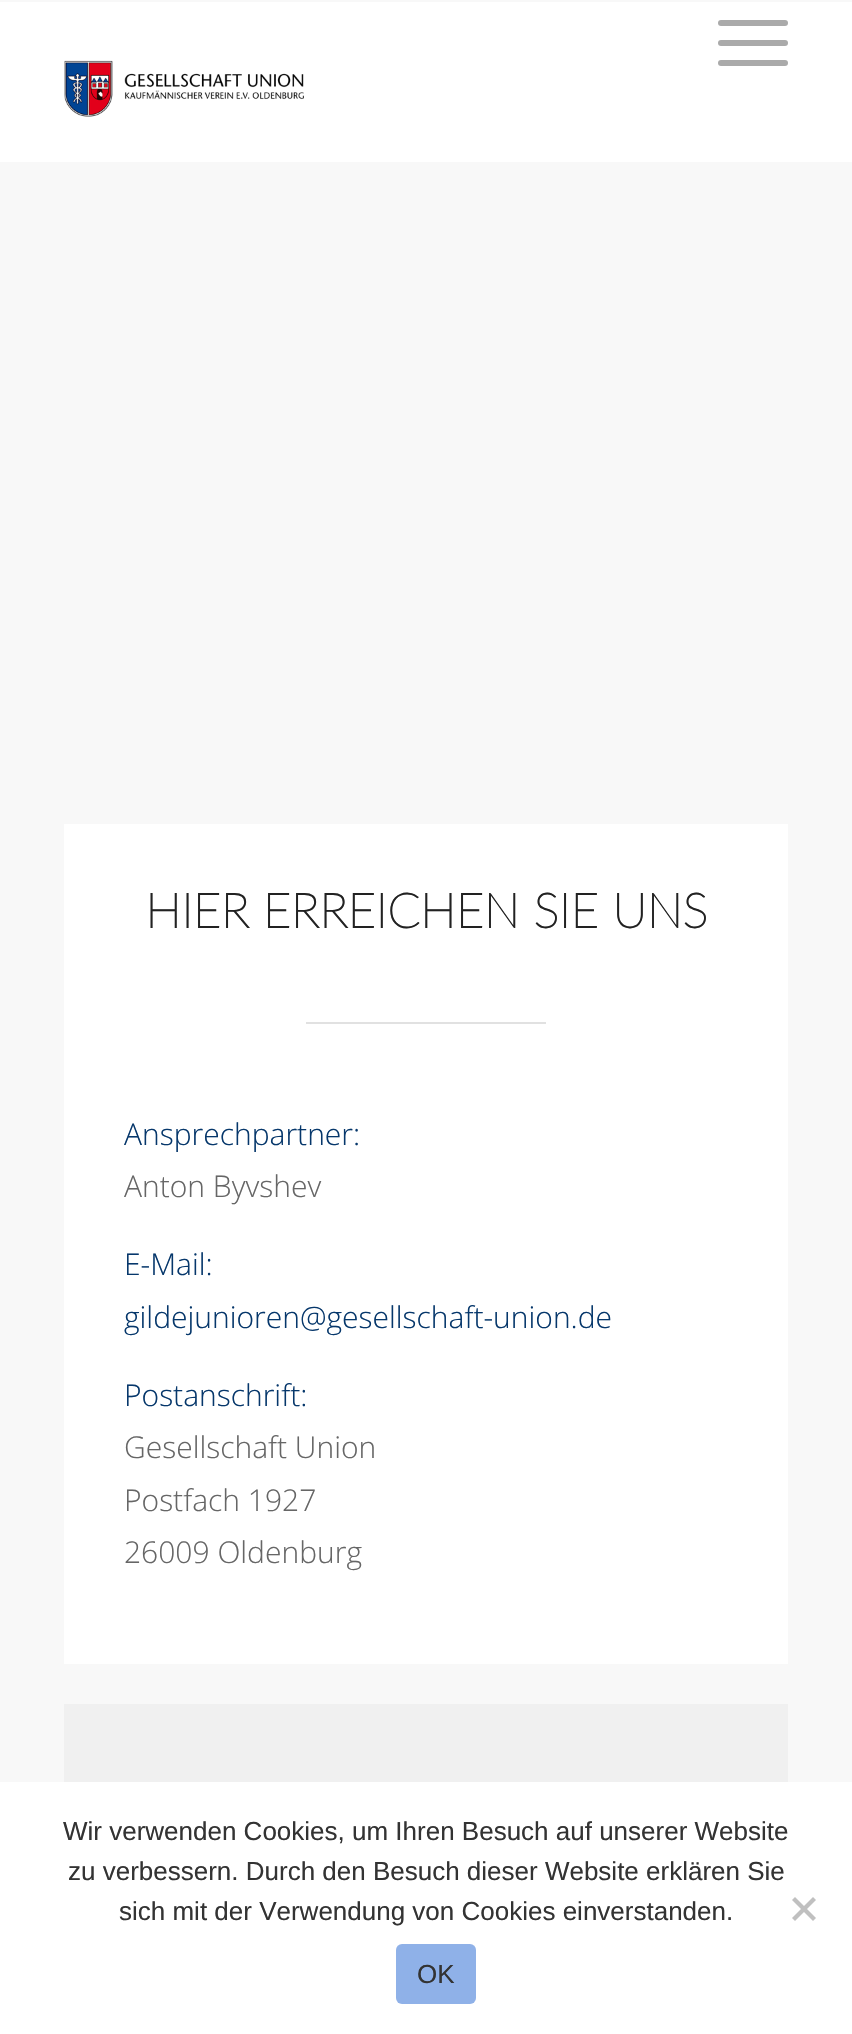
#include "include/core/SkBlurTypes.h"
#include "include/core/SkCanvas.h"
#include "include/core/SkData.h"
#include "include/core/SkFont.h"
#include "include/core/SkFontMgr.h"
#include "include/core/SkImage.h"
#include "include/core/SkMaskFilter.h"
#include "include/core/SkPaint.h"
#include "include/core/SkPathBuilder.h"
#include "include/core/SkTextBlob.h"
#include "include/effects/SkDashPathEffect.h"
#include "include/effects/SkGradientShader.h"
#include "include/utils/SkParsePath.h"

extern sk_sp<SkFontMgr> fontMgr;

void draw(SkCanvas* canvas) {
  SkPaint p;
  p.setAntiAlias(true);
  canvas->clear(SkColorSetRGB(248, 248, 248));
  p.setColor(SK_ColorWHITE);
  canvas->drawRect(SkRect::MakeLTRB(0, 2, 852, 162), p);
  p.setColor(SkColorSetRGB(170, 170, 170));
  canvas->drawRoundRect(SkRect::MakeLTRB(718, 40, 788, 46), 3, 3, p);
  canvas->drawRoundRect(SkRect::MakeLTRB(718, 20, 788, 26), 3, 3, p);
  canvas->drawRoundRect(SkRect::MakeLTRB(718, 60, 788, 66), 3, 3, p);
  canvas->drawImageRect(SkImages::DeferredFromEncodedData(SkData::MakeFromFileName("images/1.png")), SkRect::MakeLTRB(64, 60, 304, 117), SkSamplingOptions());
  p.setColor(SK_ColorWHITE);
  canvas->drawRect(SkRect::MakeLTRB(64, 824, 788, 1664), p);
  p.setColor(SkColorSetRGB(225, 225, 225));
  canvas->drawRect(SkRect::MakeLTRB(306, 1022, 546, 1024), p);
  p.setColor(SkColorSetRGB(240, 240, 240));
  canvas->drawRect(SkRect::MakeLTRB(64, 1704, 788, 1782), p);
  p.setColor(SK_ColorWHITE);
  canvas->drawRect(SkRect::MakeLTRB(0, 1782, 852, 2034), p);
  p.setColor(SkColorSetRGB(192, 192, 192));
  canvas->drawPath(SkPathBuilder().moveTo(813, 1897).lineTo(816, 1900).lineTo(795, 1921).lineTo(792, 1918).close().detach(), p);
  canvas->drawPath(SkPathBuilder().moveTo(792, 1900).lineTo(795, 1897).lineTo(816, 1918).lineTo(813, 1921).close().detach(), p);
  p.setColor(SkColorSetRGB(143, 177, 232));
  canvas->drawRoundRect(SkRect::MakeLTRB(396, 1944, 476, 2004), 6, 6, p);
  SkFont font1(fontMgr->matchFamilyStyle("Lato", SkFontStyle::Bold()), 48);
  font1.setSubpixel(true);
  p.setColor(SkColorSetRGB(34, 34, 34));
  canvas->drawString("HIER ERREICHEN SIE UNS", 145, 928, font1, p);
  SkFont font2(fontMgr->matchFamilyStyle("Open Sans", SkFontStyle(300, SkFontStyle::kNormal_Width, SkFontStyle::kUpright_Slant)), 30);
  font2.setSubpixel(true);
  p.setColor(SkColorSetRGB(6, 55, 107));
  canvas->drawString("Ansprechpartner:", 124, 1145, font2, p);
  p.setColor(SkColorSetRGB(102, 102, 102));
  canvas->drawString("Anton Byvshev", 124, 1197, font2, p);
  p.setColor(SkColorSetRGB(6, 55, 107));
  canvas->drawString("E-Mail:", 124, 1275, font2, p);
  canvas->drawString("gildejunioren@gesellschaft-union.de", 124, 1328, font2, p);
  canvas->drawString("Postanschrift:", 124, 1406, font2, p);
  p.setColor(SkColorSetRGB(102, 102, 102));
  canvas->drawString("Gesellschaft Union", 124, 1458, font2, p);
  canvas->drawString("Postfach 1927", 124, 1511, font2, p);
  canvas->drawString("26009 Oldenburg", 124, 1563, font2, p);
  SkFont font3(fontMgr->matchFamilyStyle("Liberation Sans", SkFontStyle::Normal()), 26);
  font3.setSubpixel(true);
  p.setColor(SkColorSetRGB(51, 51, 51));
  canvas->drawString("Wir verwenden Cookies, um Ihren Besuch auf unserer Website", 63, 1840, font3, p);
  canvas->drawString("zu verbessern. Durch den Besuch dieser Website erklären Sie", 68, 1880, font3, p);
  canvas->drawString("sich mit der Verwendung von Cookies einverstanden.", 119, 1920, font3, p);
  canvas->drawString("OK", 417, 1983, font3, p);
}
